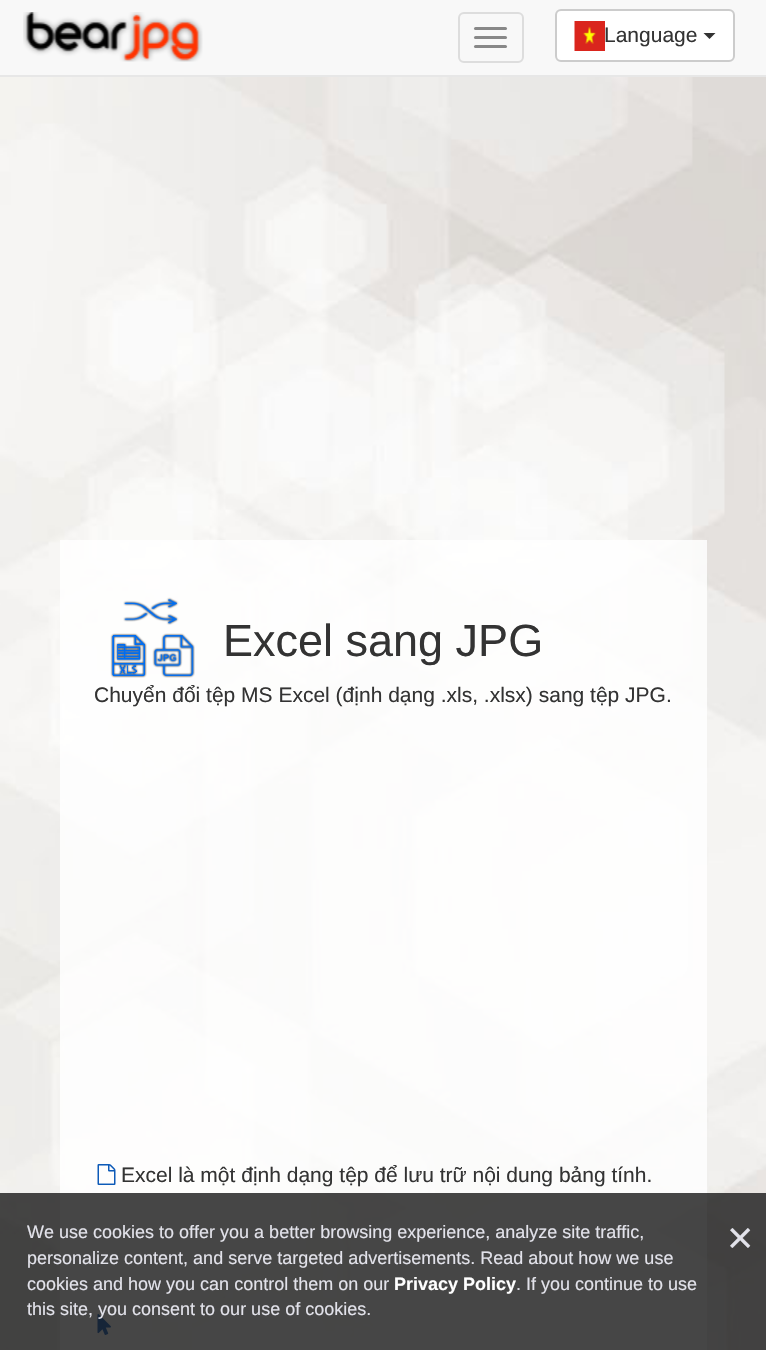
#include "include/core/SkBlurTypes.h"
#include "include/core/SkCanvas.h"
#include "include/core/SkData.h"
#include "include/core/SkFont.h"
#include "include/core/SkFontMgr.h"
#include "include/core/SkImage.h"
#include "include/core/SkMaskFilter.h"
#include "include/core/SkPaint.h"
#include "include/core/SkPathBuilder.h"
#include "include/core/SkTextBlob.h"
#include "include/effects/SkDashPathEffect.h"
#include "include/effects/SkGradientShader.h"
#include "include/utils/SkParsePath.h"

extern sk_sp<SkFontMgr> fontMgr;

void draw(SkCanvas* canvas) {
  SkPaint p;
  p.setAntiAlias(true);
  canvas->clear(SK_ColorWHITE);
  p.setColor(SkColorSetRGB(248, 248, 248));
  canvas->drawRect(SkRect::MakeLTRB(0, 0, 766, 75), p);
  p.setColor(SkColorSetRGB(231, 231, 231));
  canvas->drawRect(SkRect::MakeLTRB(0, 75, 766, 77), p);
  canvas->drawImageRect(SkImages::DeferredFromEncodedData(SkData::MakeFromFileName("images/1.png")), SkRect::MakeLTRB(23, 12, 203, 62), SkSamplingOptions());
  p.setStyle(SkPaint::kStroke_Style);
  p.setStrokeWidth(2);
  p.setColor(SkColorSetRGB(221, 221, 221));
  canvas->drawRoundRect(SkRect::MakeLTRB(459, 13, 523, 62), 5, 5, p);
  p.setStyle(SkPaint::kFill_Style);
  p.setColor(SkColorSetRGB(136, 136, 136));
  canvas->drawRoundRect(SkRect::MakeLTRB(474, 27, 507, 30), 1.5f, 1.5f, p);
  canvas->drawRoundRect(SkRect::MakeLTRB(474, 36, 507, 39), 1.5f, 1.5f, p);
  canvas->drawRoundRect(SkRect::MakeLTRB(474, 45, 507, 48), 1.5f, 1.5f, p);
  p.setColor(SK_ColorWHITE);
  canvas->drawRoundRect(SkRect::MakeLTRB(556, 10, 734, 61), 5, 5, p);
  p.setStyle(SkPaint::kStroke_Style);
  p.setColor(SkColorSetRGB(204, 204, 204));
  canvas->drawRoundRect(SkRect::MakeLTRB(556, 10, 734, 61), 5, 5, p);
  canvas->drawImageRect(SkImages::DeferredFromEncodedData(SkData::MakeFromFileName("images/2.png")), SkRect::MakeLTRB(574, 21, 605, 51), SkSamplingOptions());
  p.setStyle(SkPaint::kFill_Style);
  p.setColor(SkColorSetRGB(51, 51, 51));
  canvas->drawPath(SkPathBuilder().moveTo(703.5f, 33).lineTo(715.5f, 33).lineTo(709.5f, 39).close().detach(), p);
  canvas->drawImageRect(SkImages::DeferredFromEncodedData(SkData::MakeFromFileName("images/3.png")), SkRect::MakeLTRB(0, 77, 766, 1350), SkSamplingOptions());
  p.setColor(SkColorSetARGB(204, 255, 255, 255));
  canvas->drawRect(SkRect::MakeLTRB(60, 540, 707, 1350), p);
  canvas->drawImageRect(SkImages::DeferredFromEncodedData(SkData::MakeFromFileName("images/4.png")), SkRect::MakeLTRB(110, 597, 195, 678), SkSamplingOptions());
  canvas->drawImageRect(SkImages::DeferredFromEncodedData(SkData::MakeFromFileName("images/5.png")), SkRect::MakeLTRB(97, 1164, 116, 1185), SkSamplingOptions());
  canvas->drawImageRect(SkImages::DeferredFromEncodedData(SkData::MakeFromFileName("images/6.png")), SkRect::MakeLTRB(97, 1314, 111, 1335), SkSamplingOptions());
  p.setColor(SkColorSetARGB(204, 24, 24, 24));
  canvas->drawRect(SkRect::MakeLTRB(0, 1193, 766, 1350), p);
  SkFont font1(fontMgr->matchFamilyStyle("Liberation Sans", SkFontStyle::Normal()), 21);
  font1.setSubpixel(true);
  p.setColor(SkColorSetRGB(51, 51, 51));
  canvas->drawString("Language", 604, 42, font1, p);
  SkFont font2(fontMgr->matchFamilyStyle("Liberation Sans", SkFontStyle::Normal()), 45);
  font2.setSubpixel(true);
  canvas->drawString("Excel sang JPG", 223, 656, font2, p);
  canvas->drawString("Chuyển đổi tệp MS Excel (định dạng .xls, .xlsx) sang tệp JPG.", 94, 702, font1, p);
  canvas->drawString("Excel là một định dạng tệp để lưu trữ nội dung bảng tính.", 121, 1182, font1, p);
  SkFont font3(fontMgr->matchFamilyStyle("Liberation Sans", SkFontStyle::Normal()), 18);
  font3.setSubpixel(true);
  p.setColor(SkColorSetRGB(226, 226, 234));
  canvas->drawString("We use cookies to offer you a better browsing experience, analyze site traffic,", 27, 1238, font3, p);
  canvas->drawString("personalize content, and serve targeted advertisements. Read about how we use", 27, 1264, font3, p);
  canvas->drawString("cookies and how you can control them on our", 27, 1290, font3, p);
  SkFont font4(fontMgr->matchFamilyStyle("Liberation Sans", SkFontStyle::Bold()), 18);
  font4.setSubpixel(true);
  p.setColor(SK_ColorWHITE);
  canvas->drawString("Privacy Policy", 394, 1290, font4, p);
  p.setColor(SkColorSetRGB(226, 226, 234));
  canvas->drawString(". If you continue to use", 516, 1290, font3, p);
  canvas->drawString("this site, you consent to our use of cookies.", 27, 1315, font3, p);
  canvas->drawString("×", 727, 1253, font2, p);
}
